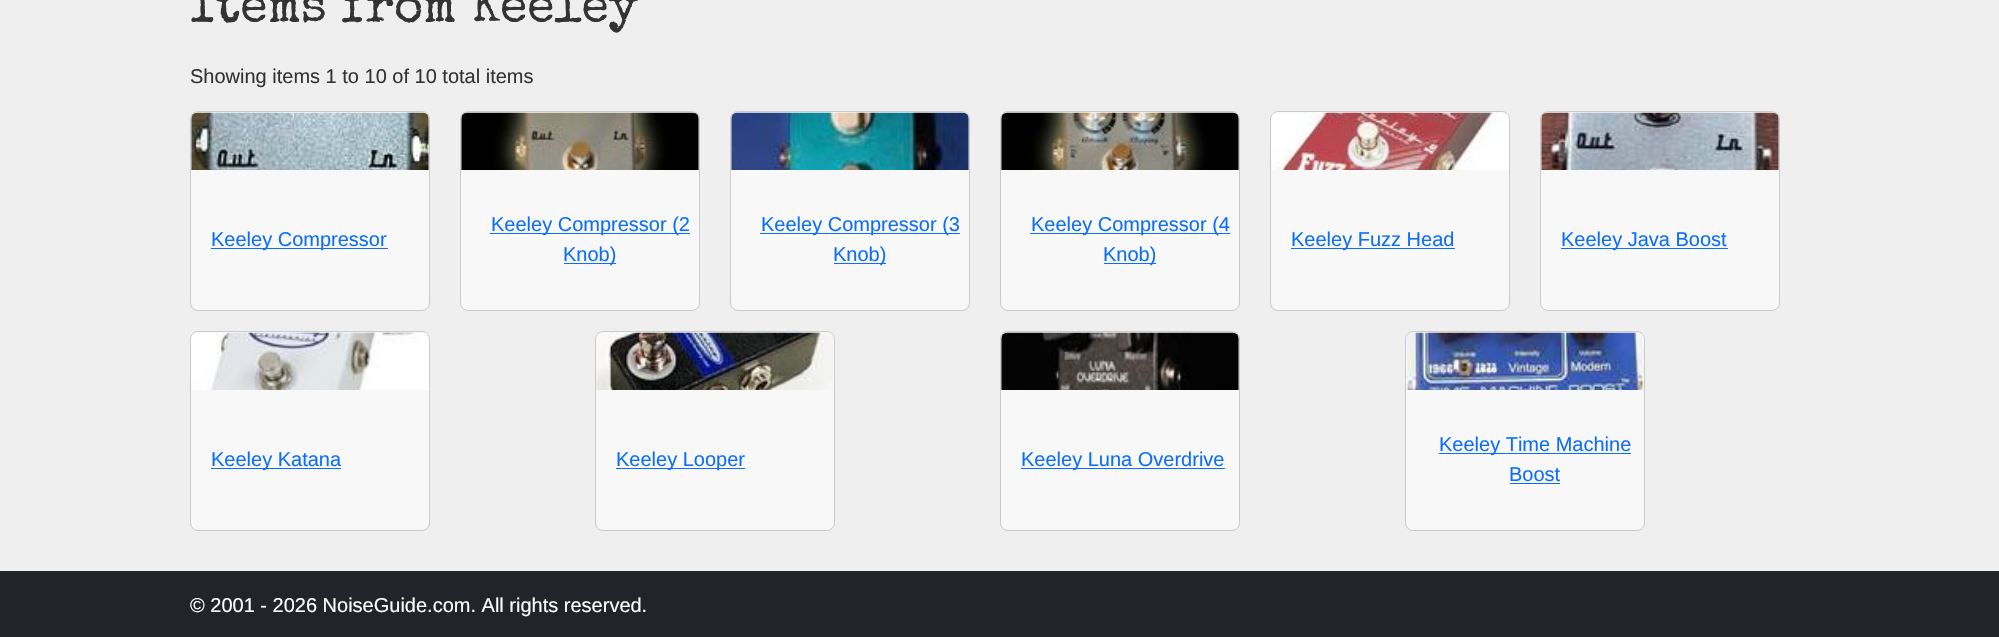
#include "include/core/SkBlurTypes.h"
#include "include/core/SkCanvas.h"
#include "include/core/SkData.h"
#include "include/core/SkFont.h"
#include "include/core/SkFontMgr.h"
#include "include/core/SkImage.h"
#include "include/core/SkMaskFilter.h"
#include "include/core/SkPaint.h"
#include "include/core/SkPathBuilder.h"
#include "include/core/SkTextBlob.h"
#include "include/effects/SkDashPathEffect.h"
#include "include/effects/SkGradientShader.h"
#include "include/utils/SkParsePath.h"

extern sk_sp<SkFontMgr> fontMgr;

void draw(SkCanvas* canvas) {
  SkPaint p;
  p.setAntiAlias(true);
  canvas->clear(SkColorSetRGB(239, 239, 239));
  p.setColor(SkColorSetRGB(248, 248, 248));
  canvas->drawRoundRect(SkRect::MakeLTRB(190, 111, 430, 311), 8, 8, p);
  p.setStyle(SkPaint::kStroke_Style);
  p.setStrokeWidth(1);
  p.setColor(SkColorSetARGB(46, 0, 0, 0));
  canvas->drawRoundRect(SkRect::MakeLTRB(190.5f, 111.5f, 429.5f, 310.5f), 7.5f, 7.5f, p);
  canvas->drawImageRect(SkImages::DeferredFromEncodedData(SkData::MakeFromFileName("images/1.png")), SkRect::MakeLTRB(191, 112, 429, 170), SkSamplingOptions());
  p.setStyle(SkPaint::kFill_Style);
  p.setColor(SkColorSetRGB(13, 110, 253));
  canvas->drawRect(SkRect::MakeLTRB(211, 248, 388, 249), p);
  p.setColor(SkColorSetRGB(248, 248, 248));
  canvas->drawRoundRect(SkRect::MakeLTRB(460, 111, 700, 311), 8, 8, p);
  p.setStyle(SkPaint::kStroke_Style);
  p.setColor(SkColorSetARGB(46, 0, 0, 0));
  canvas->drawRoundRect(SkRect::MakeLTRB(460.5f, 111.5f, 699.5f, 310.5f), 7.5f, 7.5f, p);
  canvas->drawImageRect(SkImages::DeferredFromEncodedData(SkData::MakeFromFileName("images/2.png")), SkRect::MakeLTRB(461, 112, 699, 170), SkSamplingOptions());
  p.setStyle(SkPaint::kFill_Style);
  p.setColor(SkColorSetRGB(13, 110, 253));
  canvas->drawRect(SkRect::MakeLTRB(490, 233, 690, 234), p);
  canvas->drawRect(SkRect::MakeLTRB(564, 263, 616, 264), p);
  p.setColor(SkColorSetRGB(248, 248, 248));
  canvas->drawRoundRect(SkRect::MakeLTRB(730, 111, 970, 311), 8, 8, p);
  p.setStyle(SkPaint::kStroke_Style);
  p.setColor(SkColorSetARGB(46, 0, 0, 0));
  canvas->drawRoundRect(SkRect::MakeLTRB(730.5f, 111.5f, 969.5f, 310.5f), 7.5f, 7.5f, p);
  canvas->drawImageRect(SkImages::DeferredFromEncodedData(SkData::MakeFromFileName("images/3.png")), SkRect::MakeLTRB(731, 112, 969, 170), SkSamplingOptions());
  p.setStyle(SkPaint::kFill_Style);
  p.setColor(SkColorSetRGB(13, 110, 253));
  canvas->drawRect(SkRect::MakeLTRB(760, 233, 960, 234), p);
  canvas->drawRect(SkRect::MakeLTRB(834, 263, 886, 264), p);
  p.setColor(SkColorSetRGB(248, 248, 248));
  canvas->drawRoundRect(SkRect::MakeLTRB(1000, 111, 1240, 311), 8, 8, p);
  p.setStyle(SkPaint::kStroke_Style);
  p.setColor(SkColorSetARGB(46, 0, 0, 0));
  canvas->drawRoundRect(SkRect::MakeLTRB(1000.5f, 111.5f, 1239.5f, 310.5f), 7.5f, 7.5f, p);
  canvas->drawImageRect(SkImages::DeferredFromEncodedData(SkData::MakeFromFileName("images/4.png")), SkRect::MakeLTRB(1001, 112, 1239, 170), SkSamplingOptions());
  p.setStyle(SkPaint::kFill_Style);
  p.setColor(SkColorSetRGB(13, 110, 253));
  canvas->drawRect(SkRect::MakeLTRB(1030, 233, 1230, 234), p);
  canvas->drawRect(SkRect::MakeLTRB(1104, 263, 1156, 264), p);
  p.setColor(SkColorSetRGB(248, 248, 248));
  canvas->drawRoundRect(SkRect::MakeLTRB(1270, 111, 1510, 311), 8, 8, p);
  p.setStyle(SkPaint::kStroke_Style);
  p.setColor(SkColorSetARGB(46, 0, 0, 0));
  canvas->drawRoundRect(SkRect::MakeLTRB(1270.5f, 111.5f, 1509.5f, 310.5f), 7.5f, 7.5f, p);
  canvas->drawImageRect(SkImages::DeferredFromEncodedData(SkData::MakeFromFileName("images/5.png")), SkRect::MakeLTRB(1271, 112, 1509, 170), SkSamplingOptions());
  p.setStyle(SkPaint::kFill_Style);
  p.setColor(SkColorSetRGB(13, 110, 253));
  canvas->drawRect(SkRect::MakeLTRB(1291, 248, 1455, 249), p);
  p.setColor(SkColorSetRGB(248, 248, 248));
  canvas->drawRoundRect(SkRect::MakeLTRB(1540, 111, 1780, 311), 8, 8, p);
  p.setStyle(SkPaint::kStroke_Style);
  p.setColor(SkColorSetARGB(46, 0, 0, 0));
  canvas->drawRoundRect(SkRect::MakeLTRB(1540.5f, 111.5f, 1779.5f, 310.5f), 7.5f, 7.5f, p);
  canvas->drawImageRect(SkImages::DeferredFromEncodedData(SkData::MakeFromFileName("images/6.png")), SkRect::MakeLTRB(1541, 112, 1779, 170), SkSamplingOptions());
  p.setStyle(SkPaint::kFill_Style);
  p.setColor(SkColorSetRGB(13, 110, 253));
  canvas->drawRect(SkRect::MakeLTRB(1561, 248, 1728, 249), p);
  p.setColor(SkColorSetRGB(248, 248, 248));
  canvas->drawRoundRect(SkRect::MakeLTRB(190, 331, 430, 531), 8, 8, p);
  p.setStyle(SkPaint::kStroke_Style);
  p.setColor(SkColorSetARGB(46, 0, 0, 0));
  canvas->drawRoundRect(SkRect::MakeLTRB(190.5f, 331.5f, 429.5f, 530.5f), 7.5f, 7.5f, p);
  canvas->drawImageRect(SkImages::DeferredFromEncodedData(SkData::MakeFromFileName("images/7.png")), SkRect::MakeLTRB(191, 332, 429, 390), SkSamplingOptions());
  p.setStyle(SkPaint::kFill_Style);
  p.setColor(SkColorSetRGB(13, 110, 253));
  canvas->drawRect(SkRect::MakeLTRB(211, 468, 341, 469), p);
  p.setColor(SkColorSetRGB(248, 248, 248));
  canvas->drawRoundRect(SkRect::MakeLTRB(595, 331, 835, 531), 8, 8, p);
  p.setStyle(SkPaint::kStroke_Style);
  p.setColor(SkColorSetARGB(46, 0, 0, 0));
  canvas->drawRoundRect(SkRect::MakeLTRB(595.5f, 331.5f, 834.5f, 530.5f), 7.5f, 7.5f, p);
  canvas->drawImageRect(SkImages::DeferredFromEncodedData(SkData::MakeFromFileName("images/8.png")), SkRect::MakeLTRB(596, 332, 833, 390), SkSamplingOptions());
  p.setStyle(SkPaint::kFill_Style);
  p.setColor(SkColorSetRGB(13, 110, 253));
  canvas->drawRect(SkRect::MakeLTRB(616, 468, 745, 469), p);
  p.setColor(SkColorSetRGB(248, 248, 248));
  canvas->drawRoundRect(SkRect::MakeLTRB(1000, 331, 1240, 531), 8, 8, p);
  p.setStyle(SkPaint::kStroke_Style);
  p.setColor(SkColorSetARGB(46, 0, 0, 0));
  canvas->drawRoundRect(SkRect::MakeLTRB(1000.5f, 331.5f, 1239.5f, 530.5f), 7.5f, 7.5f, p);
  canvas->drawImageRect(SkImages::DeferredFromEncodedData(SkData::MakeFromFileName("images/9.png")), SkRect::MakeLTRB(1001, 332, 1239, 390), SkSamplingOptions());
  p.setStyle(SkPaint::kFill_Style);
  p.setColor(SkColorSetRGB(13, 110, 253));
  canvas->drawRect(SkRect::MakeLTRB(1021, 468, 1225, 469), p);
  p.setColor(SkColorSetRGB(248, 248, 248));
  canvas->drawRoundRect(SkRect::MakeLTRB(1405, 331, 1645, 531), 8, 8, p);
  p.setStyle(SkPaint::kStroke_Style);
  p.setColor(SkColorSetARGB(46, 0, 0, 0));
  canvas->drawRoundRect(SkRect::MakeLTRB(1405.5f, 331.5f, 1644.5f, 530.5f), 7.5f, 7.5f, p);
  canvas->drawImageRect(SkImages::DeferredFromEncodedData(SkData::MakeFromFileName("images/10.png")), SkRect::MakeLTRB(1406, 332, 1644, 390), SkSamplingOptions());
  p.setStyle(SkPaint::kFill_Style);
  p.setColor(SkColorSetRGB(13, 110, 253));
  canvas->drawRect(SkRect::MakeLTRB(1439, 453, 1631, 454), p);
  canvas->drawRect(SkRect::MakeLTRB(1510, 483, 1560, 484), p);
  p.setColor(SkColorSetRGB(33, 37, 41));
  canvas->drawRect(SkRect::MakeLTRB(0, 571, 1999, 637), p);
  SkFont font1(fontMgr->matchFamilyStyle("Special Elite", SkFontStyle::Normal()), 50);
  font1.setSubpixel(true);
  p.setColor(SkColorSetRGB(51, 51, 51));
  canvas->drawString("Items from Keeley", 190, 21, font1, p);
  SkFont font2(fontMgr->matchFamilyStyle("Liberation Sans", SkFontStyle::Normal()), 20);
  font2.setSubpixel(true);
  canvas->drawString("Showing items 1 to 10 of 10 total items", 190, 83, font2, p);
  p.setColor(SkColorSetRGB(13, 110, 253));
  canvas->drawString("Keeley Compressor", 211, 246, font2, p);
  canvas->drawString("Keeley Compressor (2", 491, 231, font2, p);
  canvas->drawString("Knob)", 563, 261, font2, p);
  canvas->drawString("Keeley Compressor (3", 761, 231, font2, p);
  canvas->drawString("Knob)", 833, 261, font2, p);
  canvas->drawString("Keeley Compressor (4", 1031, 231, font2, p);
  canvas->drawString("Knob)", 1103, 261, font2, p);
  canvas->drawString("Keeley Fuzz Head", 1291, 246, font2, p);
  canvas->drawString("Keeley Java Boost", 1561, 246, font2, p);
  canvas->drawString("Keeley Katana", 211, 466, font2, p);
  canvas->drawString("Keeley Looper", 616, 466, font2, p);
  canvas->drawString("Keeley Luna Overdrive", 1021, 466, font2, p);
  canvas->drawString("Keeley Time Machine", 1439, 451, font2, p);
  canvas->drawString("Boost", 1509, 481, font2, p);
  p.setColor(SK_ColorWHITE);
  canvas->drawString("© 2001 - 2026 NoiseGuide.com. All rights reserved.", 190, 612, font2, p);
}
